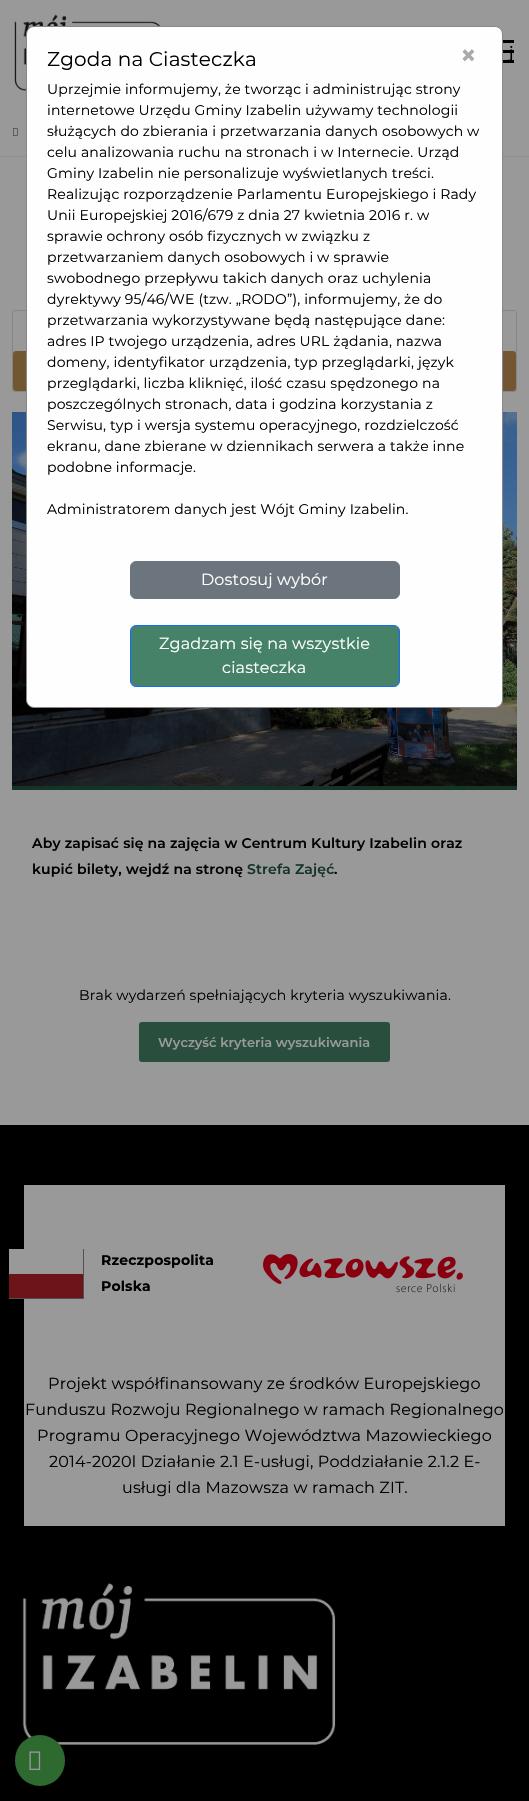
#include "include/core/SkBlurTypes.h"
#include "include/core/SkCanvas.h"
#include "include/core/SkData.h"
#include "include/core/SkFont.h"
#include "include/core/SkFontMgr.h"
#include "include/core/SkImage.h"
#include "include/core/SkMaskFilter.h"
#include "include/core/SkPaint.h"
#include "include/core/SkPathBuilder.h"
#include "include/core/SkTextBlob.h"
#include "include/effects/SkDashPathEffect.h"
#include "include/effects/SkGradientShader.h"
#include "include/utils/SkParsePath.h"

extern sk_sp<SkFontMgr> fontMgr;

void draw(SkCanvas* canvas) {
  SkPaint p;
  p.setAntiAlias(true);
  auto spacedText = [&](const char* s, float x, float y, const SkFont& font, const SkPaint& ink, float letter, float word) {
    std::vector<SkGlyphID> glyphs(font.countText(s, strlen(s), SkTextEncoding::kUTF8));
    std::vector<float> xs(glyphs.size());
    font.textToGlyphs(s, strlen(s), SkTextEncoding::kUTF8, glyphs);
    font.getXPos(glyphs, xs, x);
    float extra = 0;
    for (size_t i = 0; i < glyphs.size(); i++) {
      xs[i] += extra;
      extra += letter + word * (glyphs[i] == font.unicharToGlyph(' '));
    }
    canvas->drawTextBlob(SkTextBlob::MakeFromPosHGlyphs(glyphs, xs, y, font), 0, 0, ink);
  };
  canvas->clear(SkColorSetRGB(153, 153, 153));
  canvas->drawImageRect(SkImages::DeferredFromEncodedData(SkData::MakeFromFileName("images/1.png")), SkRect::MakeLTRB(14, 14, 161, 91), SkSamplingOptions());
  p.setColor(SkColorSetRGB(142, 142, 142));
  canvas->drawRect(SkRect::MakeLTRB(0, 156, 529, 157), p);
  p.setStyle(SkPaint::kStroke_Style);
  p.setStrokeWidth(1);
  p.setColor(SkColorSetRGB(133, 133, 133));
  canvas->drawRoundRect(SkRect::MakeLTRB(12.5f, 310.5f, 516.5f, 391.5f), 2.5f, 2.5f, p);
  p.setStyle(SkPaint::kFill_Style);
  p.setColor(SkColorSetRGB(115, 87, 50));
  canvas->drawRoundRect(SkRect::MakeLTRB(13, 351, 516, 391), 3, 3, p);
  canvas->drawImageRect(SkImages::DeferredFromEncodedData(SkData::MakeFromFileName("images/3.png")), SkRect::MakeLTRB(12, 412, 517, 786), SkSamplingOptions());
  p.setColor(SkColorSetRGB(254, 254, 254));
  canvas->drawRoundRect(SkRect::MakeLTRB(26.5f, 26.5f, 502.5f, 707.5f), 7.5f, 7.5f, p);
  p.setStyle(SkPaint::kStroke_Style);
  p.setColor(SkColorSetRGB(136, 136, 136));
  canvas->drawRoundRect(SkRect::MakeLTRB(26.5f, 26.5f, 502.5f, 707.5f), 7.5f, 7.5f, p);
  p.setStyle(SkPaint::kFill_Style);
  p.setColor(SkColorSetRGB(108, 117, 125));
  canvas->drawRoundRect(SkRect::MakeLTRB(130.5f, 561.5f, 399.5f, 598.5f), 5.5f, 5.5f, p);
  p.setStyle(SkPaint::kStroke_Style);
  canvas->drawRoundRect(SkRect::MakeLTRB(130.5f, 561.5f, 399.5f, 598.5f), 5.5f, 5.5f, p);
  p.setStyle(SkPaint::kFill_Style);
  p.setColor(SkColorSetRGB(70, 130, 103));
  canvas->drawRoundRect(SkRect::MakeLTRB(130.5f, 625.5f, 399.5f, 686.5f), 5.5f, 5.5f, p);
  p.setStyle(SkPaint::kStroke_Style);
  p.setColor(SkColorSetRGB(13, 110, 253));
  canvas->drawRoundRect(SkRect::MakeLTRB(130.5f, 625.5f, 399.5f, 686.5f), 5.5f, 5.5f, p);
  p.setStyle(SkPaint::kFill_Style);
  p.setColor(SK_ColorBLACK);
  canvas->drawRect(SkRect::MakeLTRB(503, 40, 514, 43), p);
  canvas->drawRect(SkRect::MakeLTRB(503, 50, 514, 53), p);
  canvas->drawRect(SkRect::MakeLTRB(503, 60, 514, 63), p);
  canvas->drawImageRect(SkImages::DeferredFromEncodedData(SkData::MakeFromFileName("images/2.png")), SkRect::MakeLTRB(13, 128, 18, 136), SkSamplingOptions());
  p.setColor(SkColorSetRGB(153, 153, 153));
  canvas->drawRect(SkRect::MakeLTRB(515, 311, 516, 312), p);
  p.setColor(SkColorSetRGB(20, 52, 37));
  canvas->drawRect(SkRect::MakeLTRB(12, 786, 517, 790), p);
  p.setColor(SkColorSetRGB(42, 78, 62));
  canvas->drawRoundRect(SkRect::MakeLTRB(139, 1022, 390, 1062), 3, 3, p);
  p.setColor(SK_ColorBLACK);
  canvas->drawRect(SkRect::MakeLTRB(0, 1125, 529, 1801), p);
  p.setColor(SkColorSetRGB(153, 153, 153));
  canvas->drawRect(SkRect::MakeLTRB(24, 1185, 505, 1526), p);
  canvas->drawRect(SkRect::MakeLTRB(9, 1249, 24, 1274), p);
  p.setColor(SkColorSetRGB(109, 19, 26));
  canvas->drawRect(SkRect::MakeLTRB(9, 1274, 83, 1298), p);
  p.setColor(SkColorSetRGB(81, 81, 81));
  canvas->drawPath(SkPathBuilder().moveTo(84, 1249).lineTo(9, 1249).lineTo(9, 1299).lineTo(84, 1299).close().moveTo(83, 1298).lineTo(9, 1298).lineTo(9, 1249).lineTo(83, 1249).close().detach(), p);
  canvas->drawImageRect(SkImages::DeferredFromEncodedData(SkData::MakeFromFileName("images/4.png")), SkRect::MakeLTRB(263, 1254, 463, 1293), SkSamplingOptions());
  canvas->drawImageRect(SkImages::DeferredFromEncodedData(SkData::MakeFromFileName("images/5.png")), SkRect::MakeLTRB(22, 1583, 336, 1745), SkSamplingOptions());
  p.setColor(SkColorSetRGB(46, 105, 48));
  canvas->drawRoundRect(SkRect::MakeLTRB(15, 1735, 65, 1786), 25, 25, p);
  canvas->drawImageRect(SkImages::DeferredFromEncodedData(SkData::MakeFromFileName("images/6.png")), SkRect::MakeLTRB(29, 1751, 41, 1770), SkSamplingOptions());
  SkFont font1(fontMgr->matchFamilyStyle("Montserrat", SkFontStyle::Normal()), 20);
  font1.setSubpixel(true);
  p.setColor(SK_ColorBLACK);
  spacedText("Zgoda na Ciasteczka", 47, 66, font1, p, 0.15f, 0);
  SkFont font2(fontMgr->matchFamilyStyle("Montserrat", SkFontStyle::Bold()), 28);
  font2.setSubpixel(true);
  p.setColor(SkColorSetRGB(170, 170, 170));
  spacedText("×", 460, 65, font2, p, 0.15f, 0);
  SkFont font3(fontMgr->matchFamilyStyle("Montserrat", SkFontStyle::Normal()), 14);
  font3.setSubpixel(true);
  p.setColor(SK_ColorBLACK);
  spacedText("Uprzejmie informujemy, że tworząc i administrując strony", 47, 94, font3, p, 0.15f, 0);
  spacedText("internetowe Urzędu Gminy Izabelin używamy technologii", 47, 115, font3, p, 0.15f, 0);
  spacedText("służących do zbierania i przetwarzania danych osobowych w", 47, 136, font3, p, 0.15f, 0);
  spacedText("celu analizowania ruchu na stronach i w Internecie. Urząd", 47, 157, font3, p, 0.15f, 0);
  spacedText("Gminy Izabelin nie personalizuje wyświetlanych treści.", 47, 178, font3, p, 0.15f, 0);
  spacedText("Realizując rozporządzenie Parlamentu Europejskiego i Rady", 47, 199, font3, p, 0.15f, 0);
  spacedText("Unii Europejskiej 2016/679 z dnia 27 kwietnia 2016 r. w", 47, 220, font3, p, 0.15f, 0);
  spacedText("sprawie ochrony osób fizycznych w związku z", 47, 241, font3, p, 0.15f, 0);
  spacedText("przetwarzaniem danych osobowych i w sprawie", 47, 262, font3, p, 0.15f, 0);
  spacedText("swobodnego przepływu takich danych oraz uchylenia", 47, 283, font3, p, 0.15f, 0);
  spacedText("dyrektywy 95/46/WE (tzw. „RODO”), informujemy, że do", 47, 304, font3, p, 0.15f, 0);
  spacedText("przetwarzania wykorzystywane będą następujące dane:", 47, 325, font3, p, 0.15f, 0);
  spacedText("adres IP twojego urządzenia, adres URL żądania, nazwa", 47, 346, font3, p, 0.15f, 0);
  spacedText("domeny, identyfikator urządzenia, typ przeglądarki, język", 47, 367, font3, p, 0.15f, 0);
  spacedText("przeglądarki, liczba kliknięć, ilość czasu spędzonego na", 47, 388, font3, p, 0.15f, 0);
  spacedText("poszczególnych stronach, data i godzina korzystania z", 47, 409, font3, p, 0.15f, 0);
  spacedText("Serwisu, typ i wersja systemu operacyjnego, rozdzielczość", 47, 430, font3, p, 0.15f, 0);
  spacedText("ekranu, dane zbierane w dziennikach serwera a także inne", 47, 451, font3, p, 0.15f, 0);
  spacedText("podobne informacje.", 47, 472, font3, p, 0.15f, 0);
  spacedText("Administratorem danych jest Wójt Gminy Izabelin.", 47, 514, font3, p, 0.15f, 0);
  SkFont font4(fontMgr->matchFamilyStyle("Montserrat", SkFontStyle::Normal()), 16);
  font4.setSubpixel(true);
  p.setColor(SK_ColorWHITE);
  spacedText("Dostosuj wybór", 201, 585, font4, p, 0.15f, 0);
  spacedText("Zgadzam się na wszystkie", 159, 649, font4, p, 0.15f, 0);
  spacedText("ciasteczka", 222, 673, font4, p, 0.15f, 0);
  SkFont font5(fontMgr->matchFamilyStyle("Montserrat", SkFontStyle(500, SkFontStyle::kNormal_Width, SkFontStyle::kUpright_Slant)), 16);
  font5.setSubpixel(true);
  p.setColor(SK_ColorBLACK);
  canvas->drawString("j", 509, 58, font5, p);
  SkFont font6(fontMgr->matchFamilyStyle("Montserrat", SkFontStyle(600, SkFontStyle::kNormal_Width, SkFontStyle::kUpright_Slant)), 14);
  font6.setSubpixel(true);
  spacedText("Aby zapisać się na zajęcia w Centrum Kultury Izabelin oraz", 32, 848, font6, p, 0.15f, 0);
  spacedText("kupić bilety, wejdź na stronę", 32, 874, font6, p, 0.15f, 0);
  p.setColor(SkColorSetRGB(20, 52, 37));
  spacedText("Strefa Zajęć", 247, 874, font6, p, 0.15f, 0);
  p.setColor(SK_ColorBLACK);
  spacedText(".", 334, 874, font6, p, 0.15f, 0);
  spacedText("Brak wydarzeń spełniających kryteria wyszukiwania.", 79, 1000, font3, p, 0.15f, 0);
  SkFont font7(fontMgr->matchFamilyStyle("Montserrat", SkFontStyle(600, SkFontStyle::kNormal_Width, SkFontStyle::kUpright_Slant)), 13);
  font7.setSubpixel(true);
  p.setColor(SkColorSetRGB(153, 153, 153));
  canvas->drawString("Wyczyść kryteria wyszukiwania", 158, 1047, font7, p);
  SkFont font8(fontMgr->matchFamilyStyle("Montserrat", SkFontStyle::Bold()), 14);
  font8.setSubpixel(true);
  p.setColor(SK_ColorBLACK);
  spacedText("Rzeczpospolita", 101, 1265, font8, p, 0.15f, 0);
  spacedText("Polska", 101, 1291, font8, p, 0.15f, 0);
  spacedText("Projekt współfinansowany ze środków Europejskiego", 48, 1389, font4, p, 0.15f, 0);
  spacedText("Funduszu Rozwoju Regionalnego w ramach Regionalnego", 25, 1415, font4, p, 0.15f, 0);
  spacedText("Programu Operacyjnego Województwa Mazowieckiego", 37, 1441, font4, p, 0.15f, 0);
  spacedText("2014-2020l Działanie 2.1 E-usługi, Poddziałanie 2.1.2 E-", 49, 1467, font4, p, 0.15f, 0);
  spacedText("usługi dla Mazowsza w ramach ZIT.", 122, 1493, font4, p, 0.15f, 0);
}
